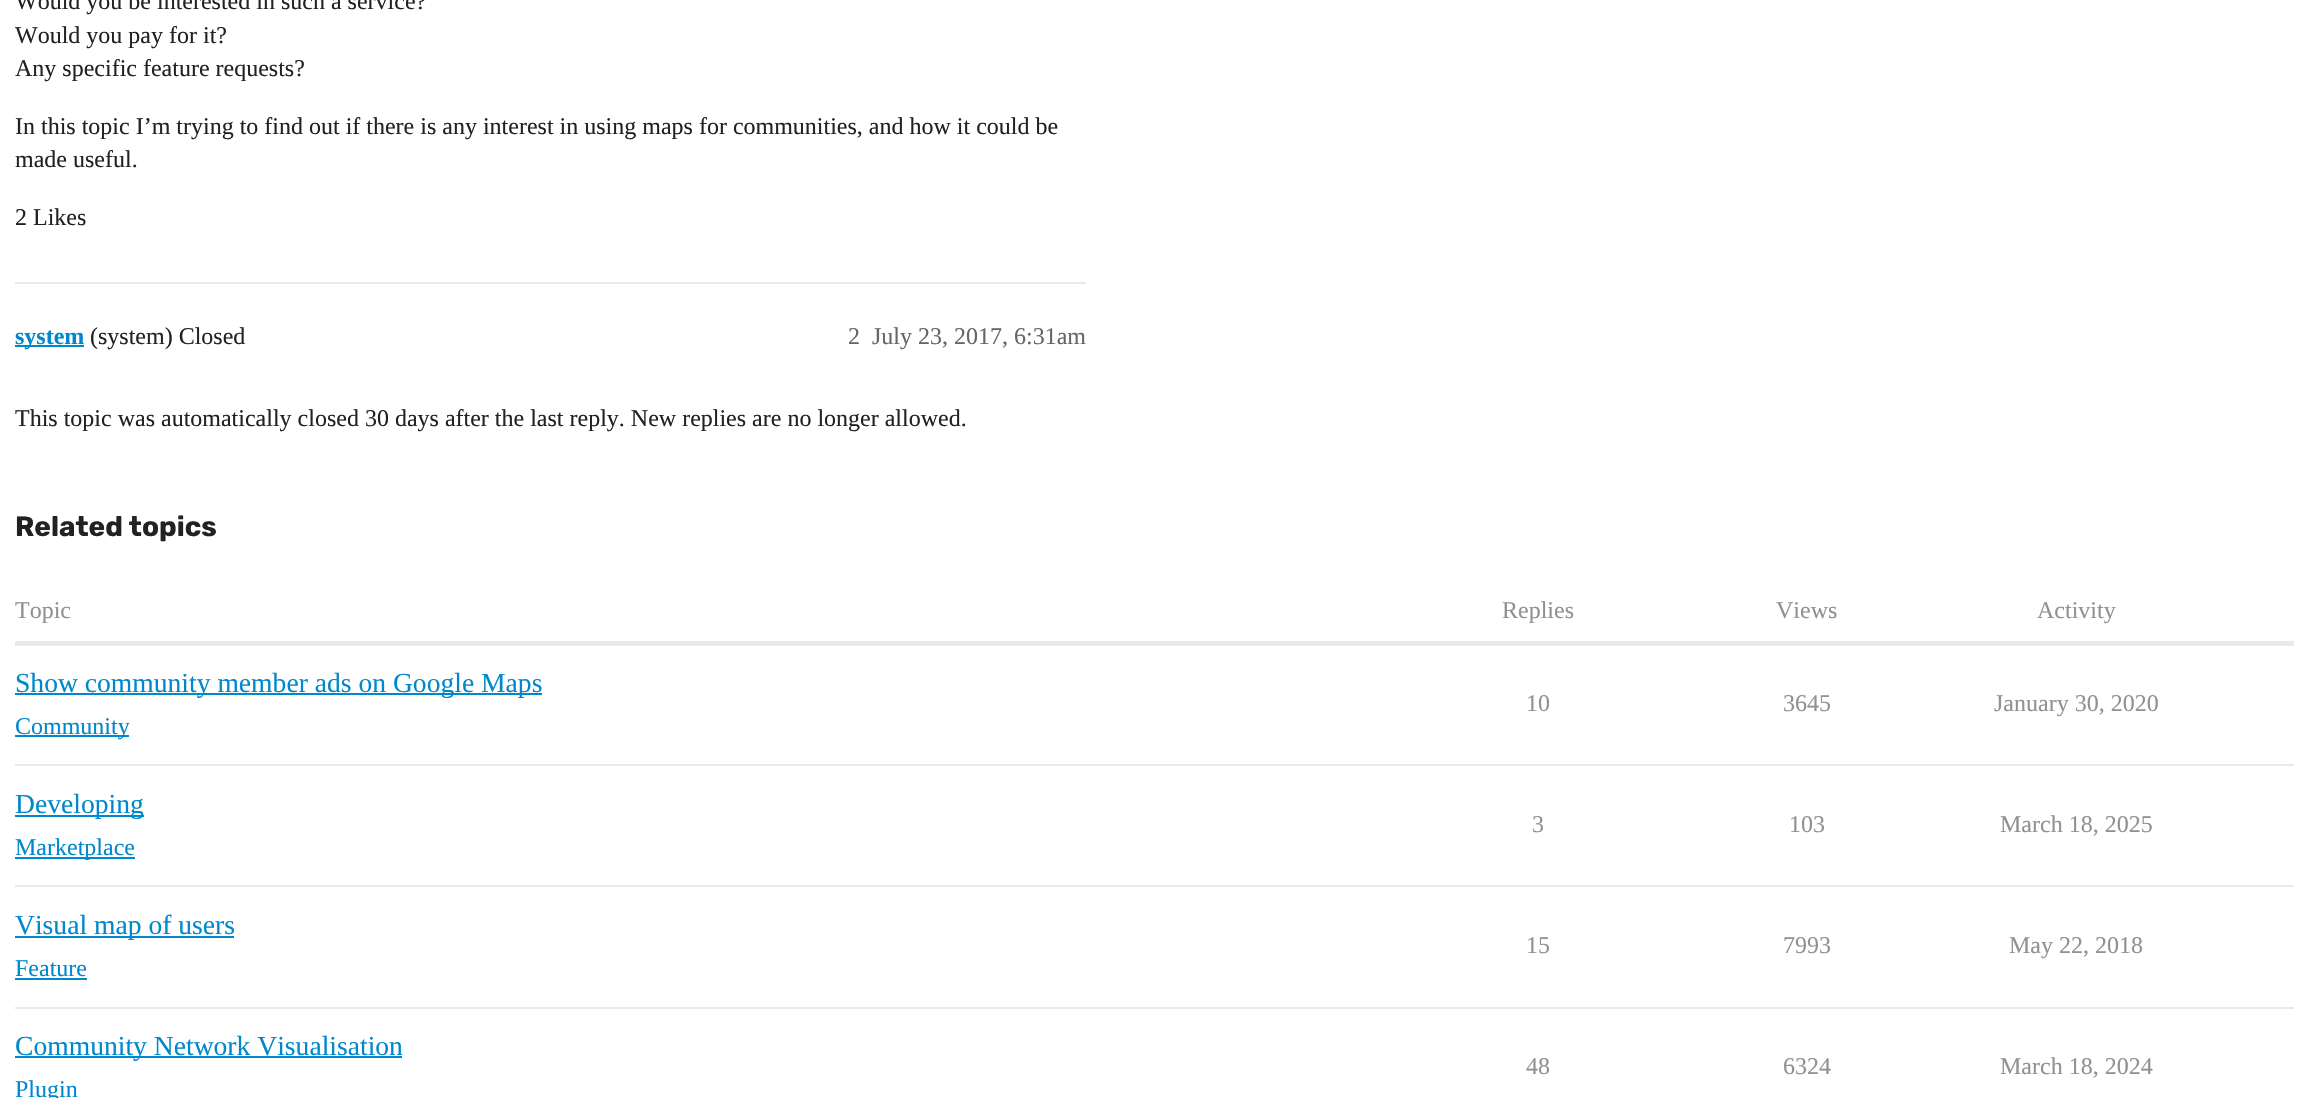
#include "include/core/SkBlurTypes.h"
#include "include/core/SkCanvas.h"
#include "include/core/SkData.h"
#include "include/core/SkFont.h"
#include "include/core/SkFontMgr.h"
#include "include/core/SkImage.h"
#include "include/core/SkMaskFilter.h"
#include "include/core/SkPaint.h"
#include "include/core/SkPathBuilder.h"
#include "include/core/SkTextBlob.h"
#include "include/effects/SkDashPathEffect.h"
#include "include/effects/SkGradientShader.h"
#include "include/utils/SkParsePath.h"

extern sk_sp<SkFontMgr> fontMgr;

void draw(SkCanvas* canvas) {
  SkPaint p;
  p.setAntiAlias(true);
  canvas->clear(SK_ColorWHITE);
  p.setColor(SkColorSetRGB(233, 233, 233));
  canvas->drawRect(SkRect::MakeLTRB(15, 282, 1086, 284), p);
  p.setColor(SkColorSetRGB(0, 136, 204));
  canvas->drawRect(SkRect::MakeLTRB(15, 345, 84, 347), p);
  p.setColor(SkColorSetRGB(233, 233, 233));
  canvas->drawRect(SkRect::MakeLTRB(15, 641, 2294, 646), p);
  canvas->drawRect(SkRect::MakeLTRB(15, 764, 2294, 766), p);
  p.setColor(SkColorSetRGB(0, 136, 204));
  canvas->drawRect(SkRect::MakeLTRB(15, 693, 542, 695), p);
  canvas->drawRect(SkRect::MakeLTRB(15, 735, 129, 737), p);
  p.setColor(SkColorSetRGB(233, 233, 233));
  canvas->drawRect(SkRect::MakeLTRB(15, 885, 2294, 887), p);
  p.setColor(SkColorSetRGB(0, 136, 204));
  canvas->drawRect(SkRect::MakeLTRB(15, 815, 144, 817), p);
  canvas->drawRect(SkRect::MakeLTRB(15, 857, 135, 859), p);
  p.setColor(SkColorSetRGB(233, 233, 233));
  canvas->drawRect(SkRect::MakeLTRB(15, 1007, 2294, 1009), p);
  p.setColor(SkColorSetRGB(0, 136, 204));
  canvas->drawRect(SkRect::MakeLTRB(15, 936, 234, 938), p);
  canvas->drawRect(SkRect::MakeLTRB(15, 978, 87, 980), p);
  canvas->drawRect(SkRect::MakeLTRB(15, 1056, 402, 1058), p);
  SkFont font1(fontMgr->matchFamilyStyle("Liberation Serif", SkFontStyle::Normal()), 24);
  font1.setSubpixel(true);
  p.setColor(SkColorSetRGB(34, 34, 34));
  canvas->drawString("Would you be interested in such a service?", 15, 9, font1, p);
  canvas->drawString("Would you pay for it?", 15, 43, font1, p);
  canvas->drawString("Any specific feature requests?", 15, 76, font1, p);
  canvas->drawString("In this topic I’m trying to find out if there is any interest in using maps for communities, and how it could be", 15, 134, font1, p);
  canvas->drawString("made useful.", 15, 167, font1, p);
  canvas->drawString("2 Likes", 15, 225, font1, p);
  SkFont font2(fontMgr->matchFamilyStyle("Liberation Serif", SkFontStyle::Bold()), 24);
  font2.setSubpixel(true);
  p.setColor(SkColorSetRGB(0, 136, 204));
  canvas->drawString("system", 15, 344, font2, p);
  p.setColor(SkColorSetRGB(34, 34, 34));
  canvas->drawString("(system) Closed", 90, 344, font1, p);
  p.setColor(SkColorSetRGB(102, 102, 102));
  canvas->drawString("2", 848, 344, font1, p);
  canvas->drawString("July 23, 2017, 6:31am", 872, 344, font1, p);
  p.setColor(SkColorSetRGB(34, 34, 34));
  canvas->drawString("This topic was automatically closed 30 days after the last reply. New replies are no longer allowed.", 15, 426, font1, p);
  SkFont font3(fontMgr->matchFamilyStyle("Rubik", SkFontStyle::Bold()), 28);
  font3.setSubpixel(true);
  canvas->drawString("Related topics", 15, 536, font3, p);
  p.setColor(SkColorSetRGB(145, 145, 145));
  canvas->drawString("Topic", 15, 618, font1, p);
  canvas->drawString("Replies", 1502, 618, font1, p);
  canvas->drawString("Views", 1776, 618, font1, p);
  canvas->drawString("Activity", 2037, 618, font1, p);
  SkFont font4(fontMgr->matchFamilyStyle("Liberation Serif", SkFontStyle::Normal()), 27.6f);
  font4.setSubpixel(true);
  p.setColor(SkColorSetRGB(0, 136, 204));
  canvas->drawString("Show community member ads on Google Maps", 15, 692, font4, p);
  canvas->drawString("Community", 15, 734, font1, p);
  p.setColor(SkColorSetRGB(145, 145, 145));
  canvas->drawString("10", 1526, 711, font1, p);
  canvas->drawString("3645", 1783, 711, font1, p);
  canvas->drawString("January 30, 2020", 1994, 711, font1, p);
  p.setColor(SkColorSetRGB(0, 136, 204));
  canvas->drawString("Developing", 15, 813, font4, p);
  canvas->drawString("Marketplace", 15, 855, font1, p);
  p.setColor(SkColorSetRGB(145, 145, 145));
  canvas->drawString("3", 1532, 832, font1, p);
  canvas->drawString("103", 1789, 832, font1, p);
  canvas->drawString("March 18, 2025", 2000, 832, font1, p);
  p.setColor(SkColorSetRGB(0, 136, 204));
  canvas->drawString("Visual map of users", 15, 934, font4, p);
  canvas->drawString("Feature", 15, 976, font1, p);
  p.setColor(SkColorSetRGB(145, 145, 145));
  canvas->drawString("15", 1526, 953, font1, p);
  canvas->drawString("7993", 1783, 953, font1, p);
  canvas->drawString("May 22, 2018", 2009, 953, font1, p);
  p.setColor(SkColorSetRGB(0, 136, 204));
  canvas->drawString("Community Network Visualisation", 15, 1055, font4, p);
  canvas->drawString("Plugin", 15, 1097, font1, p);
  p.setColor(SkColorSetRGB(145, 145, 145));
  canvas->drawString("48", 1526, 1074, font1, p);
  canvas->drawString("6324", 1783, 1074, font1, p);
  canvas->drawString("March 18, 2024", 2000, 1074, font1, p);
}
